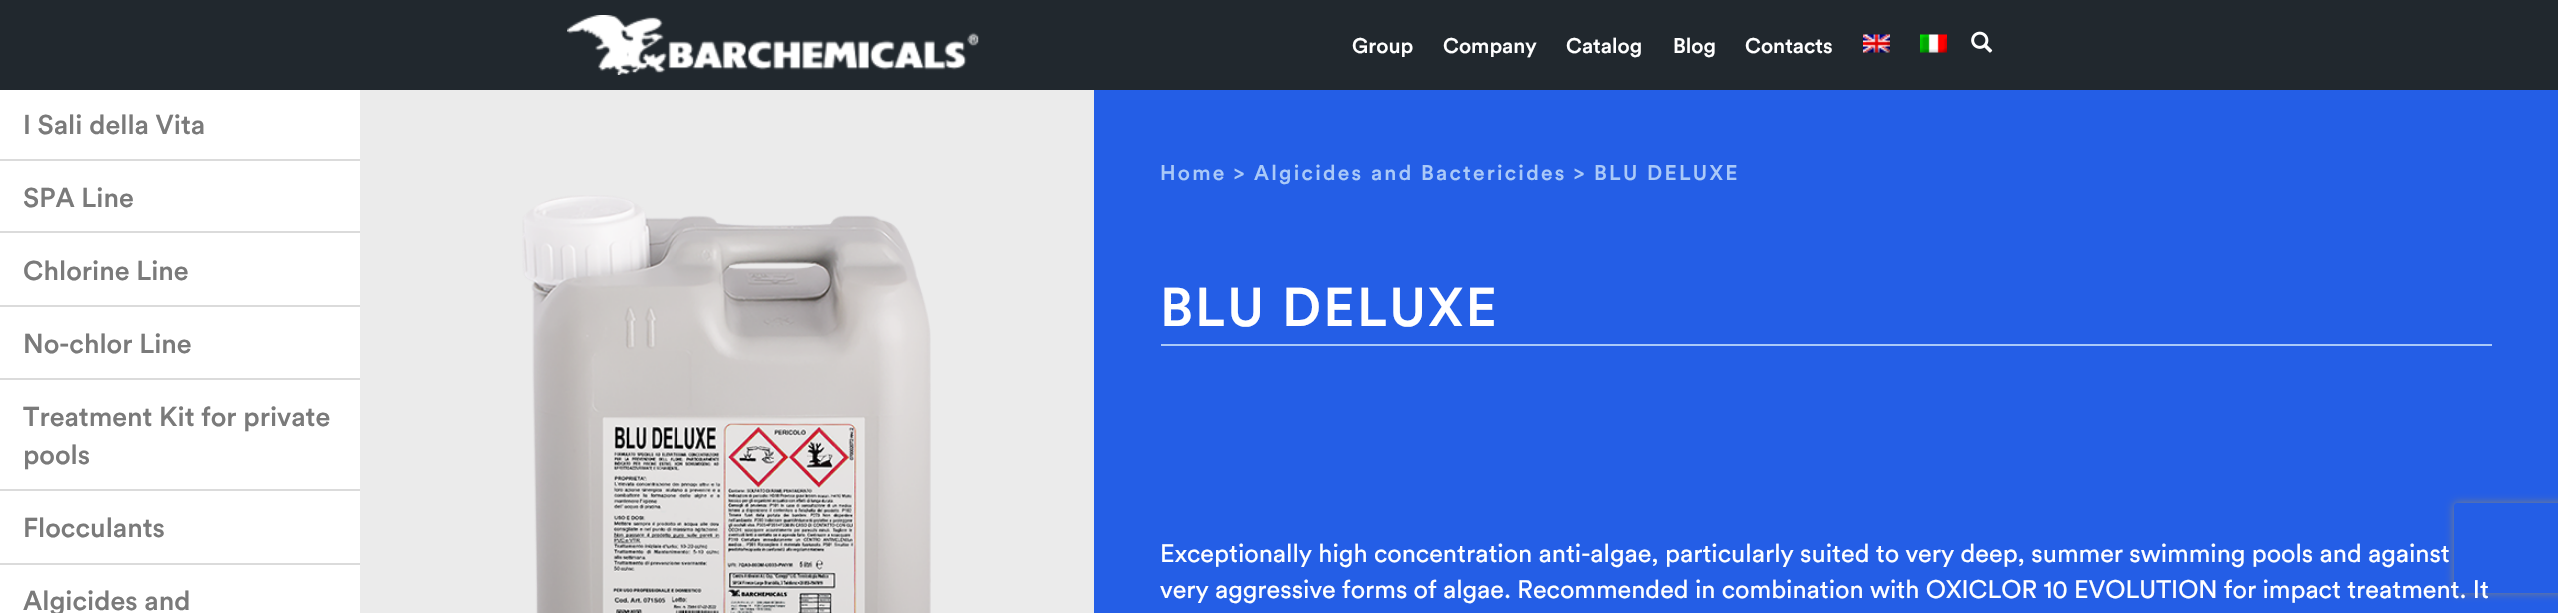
#include "include/core/SkBlurTypes.h"
#include "include/core/SkCanvas.h"
#include "include/core/SkData.h"
#include "include/core/SkFont.h"
#include "include/core/SkFontMgr.h"
#include "include/core/SkImage.h"
#include "include/core/SkMaskFilter.h"
#include "include/core/SkPaint.h"
#include "include/core/SkPathBuilder.h"
#include "include/core/SkTextBlob.h"
#include "include/effects/SkDashPathEffect.h"
#include "include/effects/SkGradientShader.h"
#include "include/utils/SkParsePath.h"

extern sk_sp<SkFontMgr> fontMgr;

void draw(SkCanvas* canvas) {
  SkPaint p;
  p.setAntiAlias(true);
  auto spacedText = [&](const char* s, float x, float y, const SkFont& font, const SkPaint& ink, float letter, float word) {
    std::vector<SkGlyphID> glyphs(font.countText(s, strlen(s), SkTextEncoding::kUTF8));
    std::vector<float> xs(glyphs.size());
    font.textToGlyphs(s, strlen(s), SkTextEncoding::kUTF8, glyphs);
    font.getXPos(glyphs, xs, x);
    float extra = 0;
    for (size_t i = 0; i < glyphs.size(); i++) {
      xs[i] += extra;
      extra += letter + word * (glyphs[i] == font.unicharToGlyph(' '));
    }
    canvas->drawTextBlob(SkTextBlob::MakeFromPosHGlyphs(glyphs, xs, y, font), 0, 0, ink);
  };
  canvas->clear(SkColorSetRGB(235, 235, 235));
  p.setColor(SkColorSetRGB(33, 40, 46));
  canvas->drawRect(SkRect::MakeLTRB(0, 0, 2558, 90), p);
  canvas->drawImageRect(SkImages::DeferredFromEncodedData(SkData::MakeFromFileName("images/1.png")), SkRect::MakeLTRB(567, 15, 979, 75), SkSamplingOptions());
  canvas->drawImageRect(SkImages::DeferredFromEncodedData(SkData::MakeFromFileName("images/2.png")), SkRect::MakeLTRB(1863, 34, 1890, 53), SkSamplingOptions());
  canvas->drawImageRect(SkImages::DeferredFromEncodedData(SkData::MakeFromFileName("images/3.png")), SkRect::MakeLTRB(1920, 34, 1947, 53), SkSamplingOptions());
  canvas->drawImageRect(SkImages::DeferredFromEncodedData(SkData::MakeFromFileName("images/4.png")), SkRect::MakeLTRB(1971, 31, 1993, 53), SkSamplingOptions());
  p.setColor(SK_ColorWHITE);
  canvas->drawRect(SkRect::MakeLTRB(0, 161, 360, 613), p);
  canvas->drawRect(SkRect::MakeLTRB(0, 90, 360, 159), p);
  p.setColor(SkColorSetRGB(219, 219, 219));
  canvas->drawRect(SkRect::MakeLTRB(0, 159, 360, 161), p);
  canvas->drawRect(SkRect::MakeLTRB(0, 231, 360, 233), p);
  canvas->drawRect(SkRect::MakeLTRB(0, 305, 360, 307), p);
  canvas->drawRect(SkRect::MakeLTRB(0, 378, 360, 380), p);
  canvas->drawRect(SkRect::MakeLTRB(0, 489, 360, 491), p);
  canvas->drawRect(SkRect::MakeLTRB(0, 563, 360, 565), p);
  canvas->drawImageRect(SkImages::DeferredFromEncodedData(SkData::MakeFromFileName("images/5.png")), SkRect::MakeLTRB(522, 195, 931, 613), SkSamplingOptions());
  p.setColor(SkColorSetRGB(36, 94, 230));
  canvas->drawRect(SkRect::MakeLTRB(1094, 90, 2558, 613), p);
  p.setColor(SkColorSetRGB(170, 201, 248));
  canvas->drawRect(SkRect::MakeLTRB(1161, 344, 2492, 346), p);
  canvas->save();
  canvas->clipPath(SkPathBuilder(SkPathFillType::kEvenOdd).moveTo(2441, 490).lineTo(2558, 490).lineTo(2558, 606).lineTo(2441, 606).close().moveTo(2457, 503).lineTo(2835, 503).cubicTo(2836.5f, 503, 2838, 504.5f, 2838, 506).lineTo(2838, 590).cubicTo(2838, 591.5f, 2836.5f, 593, 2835, 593).lineTo(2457, 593).cubicTo(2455.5f, 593, 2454, 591.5f, 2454, 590).lineTo(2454, 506).cubicTo(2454, 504.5f, 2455.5f, 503, 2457, 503).close().detach(), true);
  p.setColor(SkColorSetRGB(128, 128, 128));
  p.setMaskFilter(SkMaskFilter::MakeBlur(kNormal_SkBlurStyle, 4));
  canvas->drawRoundRect(SkRect::MakeLTRB(2454, 503, 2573, 593), 3, 3, p);
  p.setMaskFilter(nullptr);
  canvas->restore();
  SkFont font1(fontMgr->matchFamilyStyle("Circular", SkFontStyle(500, SkFontStyle::kNormal_Width, SkFontStyle::kUpright_Slant)), 21);
  font1.setSubpixel(true);
  p.setColor(SK_ColorWHITE);
  canvas->drawString("Group", 1352, 53, font1, p);
  canvas->drawString("Company", 1443, 53, font1, p);
  canvas->drawString("Catalog", 1566, 53, font1, p);
  canvas->drawString("Blog", 1673, 53, font1, p);
  canvas->drawString("Contacts", 1745, 53, font1, p);
  SkFont font2(fontMgr->matchFamilyStyle("Circular", SkFontStyle(500, SkFontStyle::kNormal_Width, SkFontStyle::kUpright_Slant)), 27);
  font2.setSubpixel(true);
  p.setColor(SkColorSetRGB(122, 122, 122));
  canvas->drawString("I Sali della Vita", 23, 134, font2, p);
  canvas->drawString("SPA Line", 23, 207, font2, p);
  canvas->drawString("Chlorine Line", 23, 280, font2, p);
  canvas->drawString("No-chlor Line", 23, 353, font2, p);
  canvas->drawString("Treatment Kit for private", 23, 426, font2, p);
  canvas->drawString("pools", 23, 464, font2, p);
  canvas->drawString("Flocculants", 23, 537, font2, p);
  canvas->drawString("Algicides and", 23, 610, font2, p);
  p.setColor(SkColorSetRGB(170, 201, 248));
  spacedText("Home > Algicides and Bactericides > BLU DELUXE", 1160, 180, font1, p, 2.25f, 0);
  SkFont font3(fontMgr->matchFamilyStyle("Circular", SkFontStyle(500, SkFontStyle::kNormal_Width, SkFontStyle::kUpright_Slant)), 54);
  font3.setSubpixel(true);
  p.setColor(SK_ColorWHITE);
  spacedText("BLU DELUXE", 1160, 326, font3, p, 2.25f, 0);
  SkFont font4(fontMgr->matchFamilyStyle("Circular", SkFontStyle::Normal()), 25.2f);
  font4.setSubpixel(true);
  canvas->drawString("Exceptionally high concentration anti-algae, particularly suited to very deep, summer swimming pools and against", 1160, 562, font4, p);
  canvas->drawString("very aggressive forms of algae. Recommended in combination with OXICLOR 10 EVOLUTION for impact treatment. It", 1160, 598, font4, p);
}
